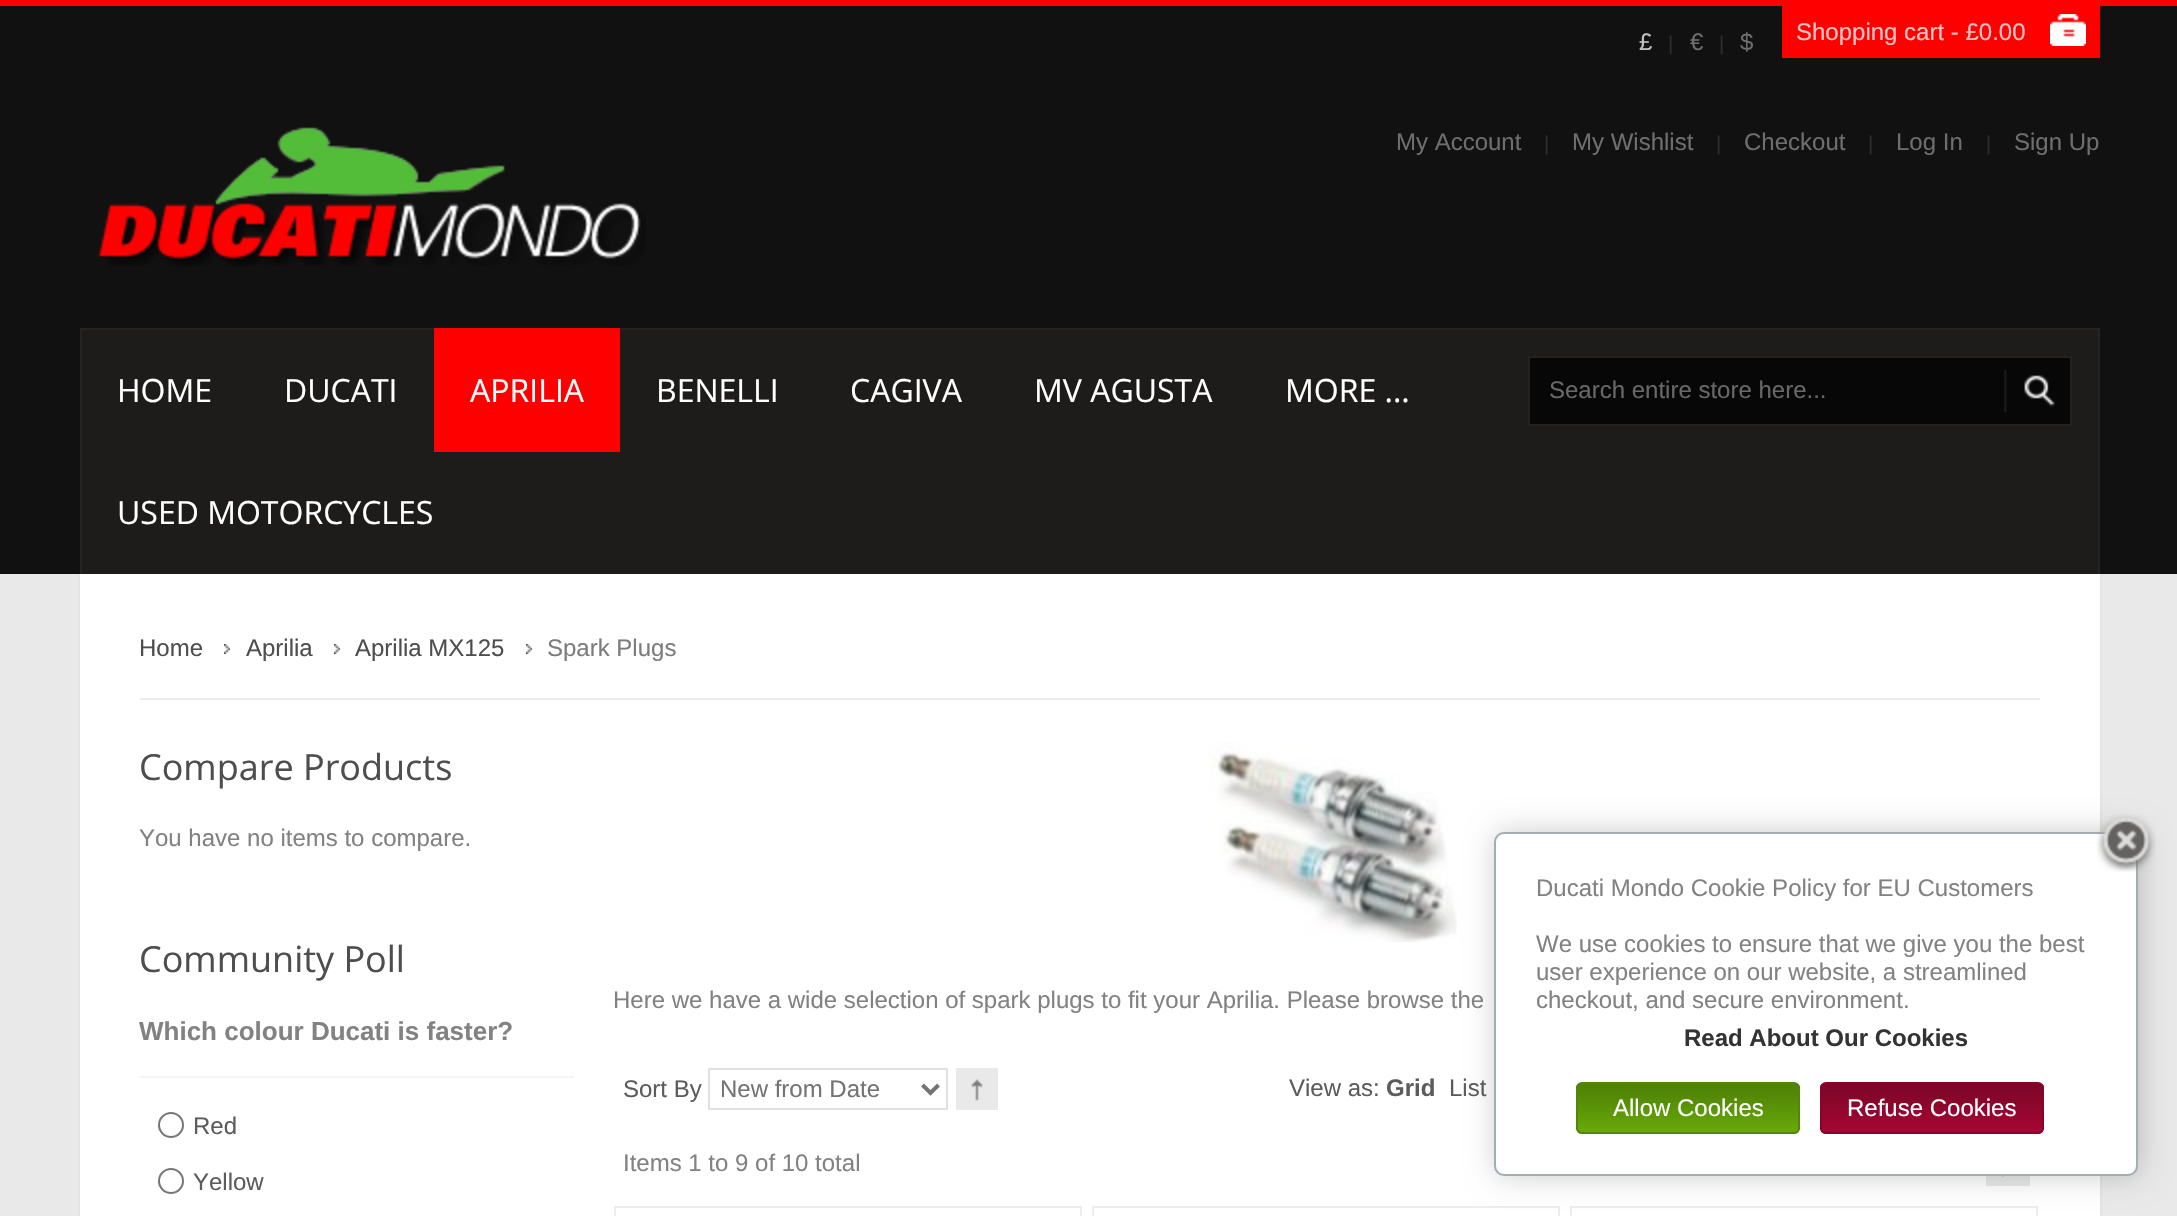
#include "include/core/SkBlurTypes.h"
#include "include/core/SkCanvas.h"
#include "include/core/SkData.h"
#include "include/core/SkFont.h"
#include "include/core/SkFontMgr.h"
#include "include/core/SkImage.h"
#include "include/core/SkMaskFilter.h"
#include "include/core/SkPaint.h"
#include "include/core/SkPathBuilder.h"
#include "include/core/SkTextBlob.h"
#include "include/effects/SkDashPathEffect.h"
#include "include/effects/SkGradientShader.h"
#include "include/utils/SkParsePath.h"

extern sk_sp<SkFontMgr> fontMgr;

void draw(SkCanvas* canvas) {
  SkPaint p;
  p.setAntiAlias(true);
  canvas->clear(SkColorSetRGB(17, 17, 17));
  p.setColor(SkColorSetRGB(254, 0, 0));
  canvas->drawRect(SkRect::MakeLTRB(0, 0, 2177, 6), p);
  canvas->drawRect(SkRect::MakeLTRB(1782, 6, 2100, 58), p);
  canvas->drawImageRect(SkImages::DeferredFromEncodedData(SkData::MakeFromFileName("images/1.png")), SkRect::MakeLTRB(2050, 14, 2086, 46), SkSamplingOptions());
  canvas->drawImageRect(SkImages::DeferredFromEncodedData(SkData::MakeFromFileName("images/2.png")), SkRect::MakeLTRB(97, 127, 646, 267), SkSamplingOptions());
  p.setColor(SkColorSetRGB(29, 28, 27));
  canvas->drawRect(SkRect::MakeLTRB(82, 330, 2098, 574), p);
  p.setColor(SkColorSetRGB(36, 36, 36));
  canvas->drawRect(SkRect::MakeLTRB(80, 328, 2100, 330), p);
  canvas->drawRect(SkRect::MakeLTRB(2098, 328, 2100, 574), p);
  canvas->drawRect(SkRect::MakeLTRB(80, 328, 82, 574), p);
  p.setColor(SkColorSetRGB(254, 0, 0));
  canvas->drawRect(SkRect::MakeLTRB(434, 328, 620, 452), p);
  p.setColor(SkColorSetRGB(8, 7, 7));
  canvas->drawRect(SkRect::MakeLTRB(1529, 357, 2071, 425), p);
  p.setStyle(SkPaint::kStroke_Style);
  p.setStrokeWidth(2);
  p.setColor(SkColorSetRGB(34, 34, 34));
  canvas->drawRect(SkRect::MakeLTRB(1529, 357, 2071, 425), p);
  canvas->drawImageRect(SkImages::DeferredFromEncodedData(SkData::MakeFromFileName("images/3.png")), SkRect::MakeLTRB(2004, 370, 2055, 412), SkSamplingOptions());
  p.setStyle(SkPaint::kFill_Style);
  p.setColor(SkColorSetRGB(233, 233, 233));
  canvas->drawRect(SkRect::MakeLTRB(0, 574, 2177, 1216), p);
  canvas->drawImageRect(SkImages::DeferredFromEncodedData(SkData::MakeFromFileName("images/4.png")), SkRect::MakeLTRB(78, 574, 2102, 1216), SkSamplingOptions());
  p.setColor(SK_ColorWHITE);
  canvas->drawRect(SkRect::MakeLTRB(80, 574, 2100, 1216), p);
  p.setColor(SkColorSetRGB(235, 235, 235));
  canvas->drawRect(SkRect::MakeLTRB(140, 698, 2040, 700), p);
  canvas->drawImageRect(SkImages::DeferredFromEncodedData(SkData::MakeFromFileName("images/5.png")), SkRect::MakeLTRB(224, 644, 230, 654), SkSamplingOptions());
  canvas->drawImageRect(SkImages::DeferredFromEncodedData(SkData::MakeFromFileName("images/5.png")), SkRect::MakeLTRB(334, 644, 340, 654), SkSamplingOptions());
  canvas->drawImageRect(SkImages::DeferredFromEncodedData(SkData::MakeFromFileName("images/5.png")), SkRect::MakeLTRB(526, 644, 532, 654), SkSamplingOptions());
  p.setColor(SkColorSetRGB(244, 244, 244));
  canvas->drawRect(SkRect::MakeLTRB(140, 1076, 574, 1078), p);
  p.setStyle(SkPaint::kStroke_Style);
  p.setColor(SkColorSetRGB(118, 118, 118));
  canvas->drawCircle(171, 1125, 12, p);
  canvas->drawCircle(171, 1181, 12, p);
  canvas->drawImageRect(SkImages::DeferredFromEncodedData(SkData::MakeFromFileName("images/6.png")), SkRect::MakeLTRB(1209, 742, 1457, 942), SkSamplingOptions());
  p.setColor(SkColorSetRGB(224, 224, 224));
  canvas->drawRect(SkRect::MakeLTRB(709, 1069, 947, 1109), p);
  p.setStrokeWidth(4);
  p.setColor(SkColorSetRGB(116, 116, 116));
  canvas->drawPath(SkPathBuilder().moveTo(922.5f, 1085).lineTo(930.5f, 1093).lineTo(938.5f, 1085).detach(), p);
  canvas->drawImageRect(SkImages::DeferredFromEncodedData(SkData::MakeFromFileName("images/7.png")), SkRect::MakeLTRB(956, 1068, 998, 1110), SkSamplingOptions());
  p.setStyle(SkPaint::kFill_Style);
  p.setColor(SkColorSetRGB(233, 233, 233));
  canvas->drawRect(SkRect::MakeLTRB(1986, 1176, 2030, 1186), p);
  canvas->drawImageRect(SkImages::DeferredFromEncodedData(SkData::MakeFromFileName("images/8.png")), SkRect::MakeLTRB(2001, 1176, 2005, 1177), SkSamplingOptions());
  p.setStyle(SkPaint::kStroke_Style);
  p.setStrokeWidth(2);
  p.setColor(SkColorSetRGB(237, 237, 237));
  canvas->drawRect(SkRect::MakeLTRB(615, 1207, 1081, 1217), p);
  canvas->drawRect(SkRect::MakeLTRB(1093, 1207, 1559, 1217), p);
  canvas->drawRect(SkRect::MakeLTRB(1571, 1207, 2037, 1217), p);
  p.setStyle(SkPaint::kFill_Style);
  p.setColor(SkColorSetARGB(51, 0, 0, 0));
  p.setMaskFilter(SkMaskFilter::MakeBlur(kNormal_SkBlurStyle, 15));
  canvas->drawRoundRect(SkRect::MakeLTRB(1496, 832, 2140, 1176), 10, 10, p);
  p.setMaskFilter(nullptr);
  p.setColor(SK_ColorWHITE);
  canvas->drawRoundRect(SkRect::MakeLTRB(1495, 833, 2137, 1175), 9, 9, p);
  p.setStyle(SkPaint::kStroke_Style);
  p.setColor(SkColorSetRGB(162, 172, 177));
  canvas->drawRoundRect(SkRect::MakeLTRB(1495, 833, 2137, 1175), 9, 9, p);
  canvas->drawImageRect(SkImages::DeferredFromEncodedData(SkData::MakeFromFileName("images/9.png")), SkRect::MakeLTRB(2096, 814, 2156, 872), SkSamplingOptions());
  canvas->drawImageRect(SkImages::DeferredFromEncodedData(SkData::MakeFromFileName("images/10.png")), SkRect::MakeLTRB(1576, 1084, 1800, 1134), SkSamplingOptions());
  p.setColor(SkColorSetRGB(82, 134, 6));
  canvas->drawRoundRect(SkRect::MakeLTRB(1577, 1083, 1799, 1133), 5, 5, p);
  canvas->drawImageRect(SkImages::DeferredFromEncodedData(SkData::MakeFromFileName("images/11.png")), SkRect::MakeLTRB(1820, 1084, 2044, 1134), SkSamplingOptions());
  p.setColor(SkColorSetRGB(136, 3, 41));
  canvas->drawRoundRect(SkRect::MakeLTRB(1821, 1083, 2043, 1133), 5, 5, p);
  SkFont font1(fontMgr->matchFamilyStyle("Liberation Sans", SkFontStyle::Normal()), 24);
  font1.setSubpixel(true);
  p.setStyle(SkPaint::kFill_Style);
  p.setColor(SkColorSetRGB(193, 193, 193));
  canvas->drawString("£", 1639, 50, font1, p);
  SkFont font2(fontMgr->matchFamilyStyle("Liberation Sans", SkFontStyle::Normal()), 20);
  font2.setSubpixel(true);
  p.setColor(SkColorSetRGB(45, 45, 45));
  canvas->drawString("|", 1668, 50, font2, p);
  p.setColor(SkColorSetRGB(110, 110, 110));
  canvas->drawString("€", 1690, 50, font1, p);
  p.setColor(SkColorSetRGB(45, 45, 45));
  canvas->drawString("|", 1719, 50, font2, p);
  p.setColor(SkColorSetRGB(110, 110, 110));
  canvas->drawString("$", 1740, 50, font1, p);
  p.setColor(SkColorSetRGB(255, 196, 196));
  canvas->drawString("Shopping cart - £0.00", 1796, 40, font1, p);
  p.setColor(SkColorSetRGB(110, 110, 110));
  canvas->drawString("My Account", 1396, 150, font1, p);
  p.setColor(SkColorSetRGB(45, 45, 45));
  canvas->drawString("|", 1544, 150, font2, p);
  p.setColor(SkColorSetRGB(110, 110, 110));
  canvas->drawString("My Wishlist", 1572, 150, font1, p);
  p.setColor(SkColorSetRGB(45, 45, 45));
  canvas->drawString("|", 1716, 150, font2, p);
  p.setColor(SkColorSetRGB(110, 110, 110));
  canvas->drawString("Checkout", 1744, 150, font1, p);
  p.setColor(SkColorSetRGB(45, 45, 45));
  canvas->drawString("|", 1868, 150, font2, p);
  p.setColor(SkColorSetRGB(110, 110, 110));
  canvas->drawString("Log In", 1896, 150, font1, p);
  p.setColor(SkColorSetRGB(45, 45, 45));
  canvas->drawString("|", 1986, 150, font2, p);
  p.setColor(SkColorSetRGB(110, 110, 110));
  canvas->drawString("Sign Up", 2014, 150, font1, p);
  SkFont font3(fontMgr->matchFamilyStyle("Open Sans", SkFontStyle::Normal()), 32);
  font3.setSubpixel(true);
  p.setColor(SK_ColorWHITE);
  canvas->drawString("HOME", 117, 402, font3, p);
  canvas->drawString("DUCATI", 284, 402, font3, p);
  canvas->drawString("APRILIA", 470, 402, font3, p);
  canvas->drawString("BENELLI", 656, 402, font3, p);
  canvas->drawString("CAGIVA", 850, 402, font3, p);
  canvas->drawString("MV AGUSTA", 1034, 402, font3, p);
  canvas->drawString("MORE ...", 1285, 402, font3, p);
  canvas->drawString("USED MOTORCYCLES", 117, 524, font3, p);
  p.setColor(SkColorSetRGB(105, 104, 104));
  canvas->drawString("Search entire store here...", 1549, 398, font1, p);
  p.setColor(SkColorSetRGB(78, 78, 78));
  canvas->drawString("Home", 139, 656, font1, p);
  canvas->drawString("Aprilia", 246, 656, font1, p);
  canvas->drawString("Aprilia MX125", 355, 656, font1, p);
  p.setColor(SkColorSetRGB(124, 124, 124));
  canvas->drawString("Spark Plugs", 547, 656, font1, p);
  SkFont font4(fontMgr->matchFamilyStyle("Open Sans", SkFontStyle::Normal()), 36);
  font4.setSubpixel(true);
  p.setColor(SkColorSetRGB(78, 78, 78));
  canvas->drawString("Compare Products", 139, 780, font4, p);
  p.setColor(SkColorSetRGB(130, 130, 130));
  canvas->drawString("You have no items to compare.", 139, 846, font1, p);
  p.setColor(SkColorSetRGB(78, 78, 78));
  canvas->drawString("Community Poll", 139, 972, font4, p);
  SkFont font5(fontMgr->matchFamilyStyle("Liberation Sans", SkFontStyle::Bold()), 26);
  font5.setSubpixel(true);
  p.setColor(SkColorSetRGB(130, 130, 130));
  canvas->drawString("Which colour Ducati is faster?", 139, 1040, font5, p);
  p.setColor(SkColorSetRGB(92, 92, 92));
  canvas->drawString("Red", 193, 1134, font1, p);
  canvas->drawString("Yellow", 193, 1190, font1, p);
  p.setColor(SkColorSetRGB(130, 130, 130));
  canvas->drawString("Here we have a wide selection of spark plugs to fit your Aprilia. Please browse the", 613, 1008, font1, p);
  p.setColor(SkColorSetRGB(92, 92, 92));
  canvas->drawString("Sort By", 623, 1097, font1, p);
  p.setColor(SkColorSetRGB(116, 116, 116));
  canvas->drawString("New from Date", 720, 1097, font1, p);
  p.setColor(SkColorSetRGB(92, 92, 92));
  canvas->drawString("View as:", 1289, 1096, font1, p);
  SkFont font6(fontMgr->matchFamilyStyle("Liberation Sans", SkFontStyle::Bold()), 24);
  font6.setSubpixel(true);
  canvas->drawString("Grid", 1386, 1096, font6, p);
  canvas->drawString("List", 1449, 1096, font1, p);
  p.setColor(SkColorSetRGB(130, 130, 130));
  canvas->drawString("Items 1 to 9 of 10 total", 623, 1171, font1, p);
  canvas->drawString("Ducati Mondo Cookie Policy for EU Customers", 1536, 896, font1, p);
  canvas->drawString("We use cookies to ensure that we give you the best", 1536, 952, font1, p);
  canvas->drawString("user experience on our website, a streamlined", 1536, 980, font1, p);
  canvas->drawString("checkout, and secure environment.", 1536, 1008, font1, p);
  p.setColor(SkColorSetRGB(51, 51, 51));
  canvas->drawString("Read About Our Cookies", 1684, 1046, font6, p);
  p.setColor(SK_ColorWHITE);
  canvas->drawString("Allow Cookies", 1613, 1116, font1, p);
  canvas->drawString("Refuse Cookies", 1847, 1116, font1, p);
}
